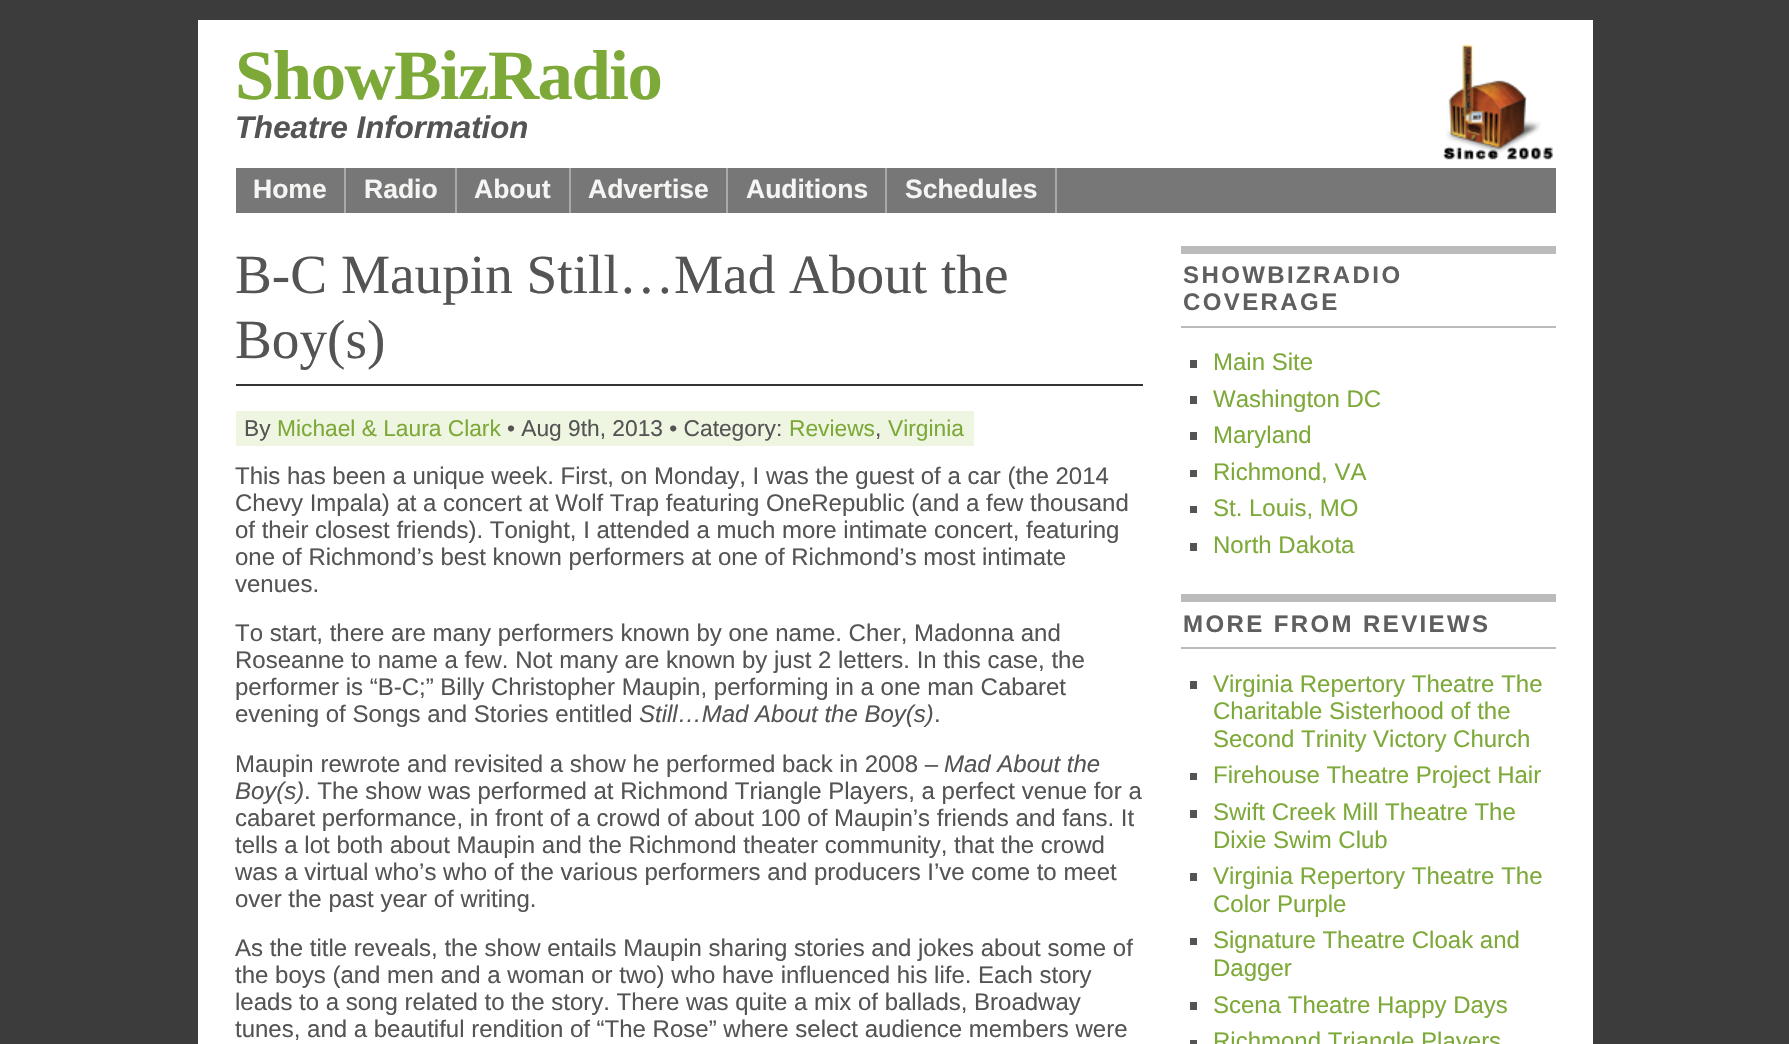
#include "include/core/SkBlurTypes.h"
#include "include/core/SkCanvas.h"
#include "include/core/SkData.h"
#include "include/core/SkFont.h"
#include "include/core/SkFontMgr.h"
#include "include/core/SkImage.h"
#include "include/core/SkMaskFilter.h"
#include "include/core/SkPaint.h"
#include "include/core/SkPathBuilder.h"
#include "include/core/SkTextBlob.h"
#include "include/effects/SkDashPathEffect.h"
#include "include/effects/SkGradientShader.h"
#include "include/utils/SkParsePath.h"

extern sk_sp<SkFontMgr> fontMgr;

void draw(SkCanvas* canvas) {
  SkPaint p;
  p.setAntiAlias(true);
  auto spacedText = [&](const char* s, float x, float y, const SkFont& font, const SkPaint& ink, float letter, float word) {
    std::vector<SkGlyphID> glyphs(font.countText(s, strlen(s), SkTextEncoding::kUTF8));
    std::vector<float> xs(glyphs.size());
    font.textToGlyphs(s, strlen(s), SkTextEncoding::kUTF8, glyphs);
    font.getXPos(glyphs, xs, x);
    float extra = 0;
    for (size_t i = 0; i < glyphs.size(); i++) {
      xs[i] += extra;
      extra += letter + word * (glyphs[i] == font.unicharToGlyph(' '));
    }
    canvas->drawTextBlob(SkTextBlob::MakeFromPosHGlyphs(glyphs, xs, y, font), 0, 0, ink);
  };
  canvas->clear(SkColorSetRGB(60, 60, 60));
  p.setColor(SK_ColorWHITE);
  canvas->drawRect(SkRect::MakeLTRB(198, 20, 1593, 1044), p);
  canvas->drawImageRect(SkImages::DeferredFromEncodedData(SkData::MakeFromFileName("images/1.png")), SkRect::MakeLTRB(1442, 44, 1553, 160), SkSamplingOptions());
  p.setColor(SkColorSetRGB(119, 119, 119));
  canvas->drawRect(SkRect::MakeLTRB(236, 168, 1556, 213), p);
  p.setColor(SkColorSetRGB(169, 169, 169));
  canvas->drawRect(SkRect::MakeLTRB(344, 168, 346, 213), p);
  canvas->drawRect(SkRect::MakeLTRB(455, 168, 457, 213), p);
  canvas->drawRect(SkRect::MakeLTRB(569, 168, 571, 213), p);
  canvas->drawRect(SkRect::MakeLTRB(726, 168, 728, 213), p);
  canvas->drawRect(SkRect::MakeLTRB(885, 168, 887, 213), p);
  canvas->drawRect(SkRect::MakeLTRB(1055, 168, 1057, 213), p);
  p.setColor(SkColorSetRGB(51, 51, 51));
  canvas->drawRect(SkRect::MakeLTRB(236, 384, 1143, 386), p);
  p.setColor(SkColorSetRGB(238, 245, 225));
  canvas->drawRect(SkRect::MakeLTRB(236, 411, 974, 446), p);
  p.setColor(SkColorSetRGB(187, 187, 187));
  canvas->drawRect(SkRect::MakeLTRB(1181, 246, 1556, 254), p);
  canvas->drawRect(SkRect::MakeLTRB(1181, 326, 1556, 328), p);
  p.setColor(SkColorSetRGB(84, 84, 84));
  canvas->drawRect(SkRect::MakeLTRB(1190, 360, 1197, 368), p);
  canvas->drawRect(SkRect::MakeLTRB(1190, 396, 1197, 404), p);
  canvas->drawRect(SkRect::MakeLTRB(1190, 432, 1197, 440), p);
  canvas->drawRect(SkRect::MakeLTRB(1190, 470, 1197, 477), p);
  canvas->drawRect(SkRect::MakeLTRB(1190, 506, 1197, 513), p);
  canvas->drawRect(SkRect::MakeLTRB(1190, 543, 1197, 551), p);
  p.setColor(SkColorSetRGB(187, 187, 187));
  canvas->drawRect(SkRect::MakeLTRB(1181, 594, 1556, 602), p);
  canvas->drawRect(SkRect::MakeLTRB(1181, 647, 1556, 649), p);
  p.setColor(SkColorSetRGB(84, 84, 84));
  canvas->drawRect(SkRect::MakeLTRB(1190, 681, 1197, 689), p);
  canvas->drawRect(SkRect::MakeLTRB(1190, 773, 1197, 780), p);
  canvas->drawRect(SkRect::MakeLTRB(1190, 810, 1197, 818), p);
  canvas->drawRect(SkRect::MakeLTRB(1190, 873, 1197, 881), p);
  canvas->drawRect(SkRect::MakeLTRB(1190, 938, 1197, 945), p);
  canvas->drawRect(SkRect::MakeLTRB(1190, 1002, 1197, 1010), p);
  canvas->drawRect(SkRect::MakeLTRB(1190, 1040, 1197, 1044), p);
  SkFont font1(fontMgr->matchFamilyStyle("Liberation Serif", SkFontStyle::Bold()), 70.75f);
  font1.setSubpixel(true);
  p.setColor(SkColorSetRGB(125, 169, 57));
  spacedText("ShowBizRadio", 235, 99, font1, p, -1.5f, 0);
  SkFont font2(fontMgr->matchFamilyStyle("Liberation Sans", SkFontStyle::BoldItalic()), 31.25f);
  font2.setSubpixel(true);
  p.setColor(SkColorSetRGB(84, 84, 84));
  canvas->drawString("Theatre Information", 235, 138, font2, p);
  SkFont font3(fontMgr->matchFamilyStyle("Liberation Sans", SkFontStyle::Bold()), 26.5f);
  font3.setSubpixel(true);
  p.setColor(SkColorSetRGB(245, 245, 244));
  canvas->drawString("Home", 253, 198, font3, p);
  canvas->drawString("Radio", 364, 198, font3, p);
  canvas->drawString("About", 474, 198, font3, p);
  canvas->drawString("Advertise", 588, 198, font3, p);
  canvas->drawString("Auditions", 746, 198, font3, p);
  canvas->drawString("Schedules", 905, 198, font3, p);
  SkFont font4(fontMgr->matchFamilyStyle("Liberation Serif", SkFontStyle::Normal()), 55.25f);
  font4.setSubpixel(true);
  p.setColor(SkColorSetRGB(84, 84, 84));
  canvas->drawString("B-C Maupin Still…Mad About the", 235, 293, font4, p);
  canvas->drawString("Boy(s)", 235, 358, font4, p);
  SkFont font5(fontMgr->matchFamilyStyle("Liberation Sans", SkFontStyle::Normal()), 22.75f);
  font5.setSubpixel(true);
  canvas->drawString("By", 244, 436, font5, p);
  p.setColor(SkColorSetRGB(125, 169, 57));
  canvas->drawString("Michael & Laura Clark", 277, 436, font5, p);
  p.setColor(SkColorSetRGB(84, 84, 84));
  canvas->drawString("• Aug 9th, 2013 • Category:", 507, 436, font5, p);
  p.setColor(SkColorSetRGB(125, 169, 57));
  canvas->drawString("Reviews", 789, 436, font5, p);
  p.setColor(SkColorSetRGB(84, 84, 84));
  canvas->drawString(",", 875, 436, font5, p);
  p.setColor(SkColorSetRGB(125, 169, 57));
  canvas->drawString("Virginia", 888, 436, font5, p);
  SkFont font6(fontMgr->matchFamilyStyle("Liberation Sans", SkFontStyle::Normal()), 24);
  font6.setSubpixel(true);
  p.setColor(SkColorSetRGB(84, 84, 84));
  canvas->drawString("This has been a unique week. First, on Monday, I was the guest of a car (the 2014", 235, 484, font6, p);
  canvas->drawString("Chevy Impala) at a concert at Wolf Trap featuring OneRepublic (and a few thousand", 235, 511, font6, p);
  canvas->drawString("of their closest friends). Tonight, I attended a much more intimate concert, featuring", 235, 538, font6, p);
  canvas->drawString("one of Richmond’s best known performers at one of Richmond’s most intimate", 235, 565, font6, p);
  canvas->drawString("venues.", 235, 592, font6, p);
  canvas->drawString("To start, there are many performers known by one name. Cher, Madonna and", 235, 641, font6, p);
  canvas->drawString("Roseanne to name a few. Not many are known by just 2 letters. In this case, the", 235, 668, font6, p);
  canvas->drawString("performer is “B-C;” Billy Christopher Maupin, performing in a one man Cabaret", 235, 695, font6, p);
  canvas->drawString("evening of Songs and Stories entitled", 235, 722, font6, p);
  SkFont font7(fontMgr->matchFamilyStyle("Liberation Sans", SkFontStyle::Italic()), 24);
  font7.setSubpixel(true);
  canvas->drawString("Still…Mad About the Boy(s)", 639, 722, font7, p);
  canvas->drawString(".", 934, 722, font6, p);
  canvas->drawString("Maupin rewrote and revisited a show he performed back in 2008 –", 235, 772, font6, p);
  canvas->drawString("Mad About the", 944, 772, font7, p);
  canvas->drawString("Boy(s)", 235, 799, font7, p);
  canvas->drawString(". The show was performed at Richmond Triangle Players, a perfect venue for a", 304, 799, font6, p);
  canvas->drawString("cabaret performance, in front of a crowd of about 100 of Maupin’s friends and fans. It", 235, 826, font6, p);
  canvas->drawString("tells a lot both about Maupin and the Richmond theater community, that the crowd", 235, 853, font6, p);
  canvas->drawString("was a virtual who’s who of the various performers and producers I’ve come to meet", 235, 880, font6, p);
  canvas->drawString("over the past year of writing.", 235, 907, font6, p);
  canvas->drawString("As the title reveals, the show entails Maupin sharing stories and jokes about some of", 235, 956, font6, p);
  canvas->drawString("the boys (and men and a woman or two) who have influenced his life. Each story", 235, 983, font6, p);
  canvas->drawString("leads to a song related to the story. There was quite a mix of ballads, Broadway", 235, 1010, font6, p);
  canvas->drawString("tunes, and a beautiful rendition of “The Rose” where select audience members were", 235, 1037, font6, p);
  SkFont font8(fontMgr->matchFamilyStyle("Liberation Sans", SkFontStyle::Bold()), 24);
  font8.setSubpixel(true);
  p.setColor(SkColorSetRGB(95, 95, 95));
  spacedText("SHOWBIZRADIO", 1183, 283, font8, p, 2.4f, 0);
  spacedText("COVERAGE", 1183, 310, font8, p, 2.4f, 0);
  p.setColor(SkColorSetRGB(125, 169, 57));
  canvas->drawString("Main Site", 1213, 370, font6, p);
  canvas->drawString("Washington DC", 1213, 407, font6, p);
  canvas->drawString("Maryland", 1213, 443, font6, p);
  canvas->drawString("Richmond, VA", 1213, 480, font6, p);
  canvas->drawString("St. Louis, MO", 1213, 516, font6, p);
  canvas->drawString("North Dakota", 1213, 553, font6, p);
  p.setColor(SkColorSetRGB(95, 95, 95));
  spacedText("MORE FROM REVIEWS", 1183, 632, font8, p, 2.4f, 0);
  p.setColor(SkColorSetRGB(125, 169, 57));
  canvas->drawString("Virginia Repertory Theatre The", 1213, 692, font6, p);
  canvas->drawString("Charitable Sisterhood of the", 1213, 719, font6, p);
  canvas->drawString("Second Trinity Victory Church", 1213, 747, font6, p);
  canvas->drawString("Firehouse Theatre Project Hair", 1213, 783, font6, p);
  canvas->drawString("Swift Creek Mill Theatre The", 1213, 820, font6, p);
  canvas->drawString("Dixie Swim Club", 1213, 848, font6, p);
  canvas->drawString("Virginia Repertory Theatre The", 1213, 884, font6, p);
  canvas->drawString("Color Purple", 1213, 912, font6, p);
  canvas->drawString("Signature Theatre Cloak and", 1213, 948, font6, p);
  canvas->drawString("Dagger", 1213, 976, font6, p);
  canvas->drawString("Scena Theatre Happy Days", 1213, 1013, font6, p);
  canvas->drawString("Richmond Triangle Players", 1213, 1049, font6, p);
}
